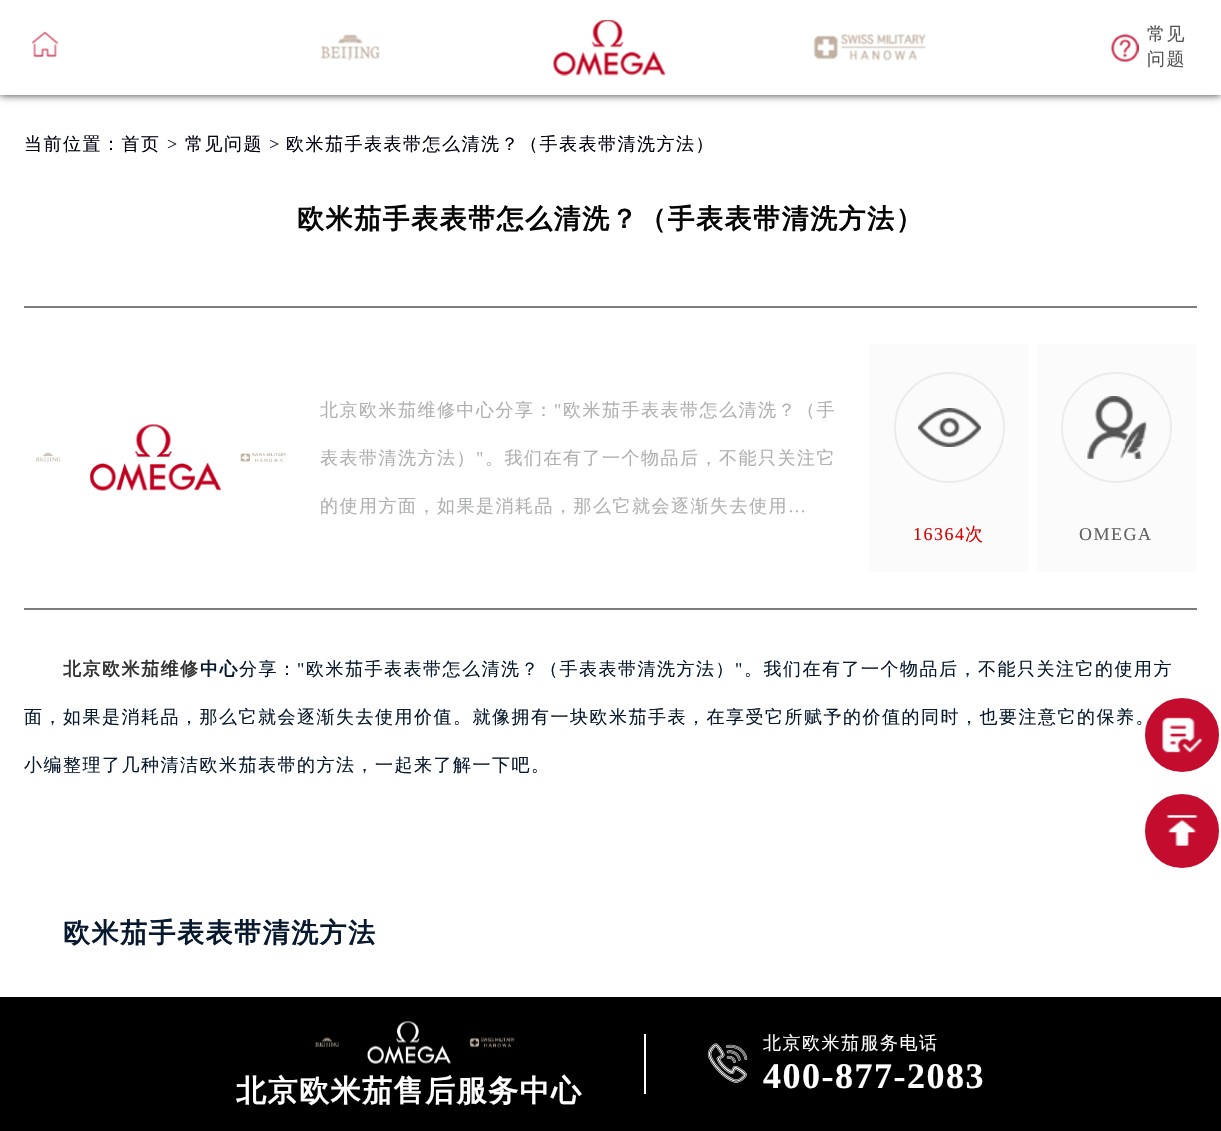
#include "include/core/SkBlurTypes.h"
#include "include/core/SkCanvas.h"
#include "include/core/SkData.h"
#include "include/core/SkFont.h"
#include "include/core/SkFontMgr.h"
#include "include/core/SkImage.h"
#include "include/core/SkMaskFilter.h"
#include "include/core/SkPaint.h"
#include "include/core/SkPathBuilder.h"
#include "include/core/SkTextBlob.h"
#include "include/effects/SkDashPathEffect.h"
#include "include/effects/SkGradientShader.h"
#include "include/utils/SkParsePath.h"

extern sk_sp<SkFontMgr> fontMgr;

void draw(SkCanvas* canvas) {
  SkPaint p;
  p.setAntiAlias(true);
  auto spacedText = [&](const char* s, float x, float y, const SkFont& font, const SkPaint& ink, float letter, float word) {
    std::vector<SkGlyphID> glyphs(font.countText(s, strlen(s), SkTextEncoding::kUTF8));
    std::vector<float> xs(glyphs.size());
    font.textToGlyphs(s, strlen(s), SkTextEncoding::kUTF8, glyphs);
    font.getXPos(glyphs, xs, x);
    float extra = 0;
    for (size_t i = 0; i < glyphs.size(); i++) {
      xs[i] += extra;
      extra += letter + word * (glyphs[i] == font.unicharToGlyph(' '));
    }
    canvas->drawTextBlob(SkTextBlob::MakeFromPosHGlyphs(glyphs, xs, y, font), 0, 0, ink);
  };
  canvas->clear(SK_ColorWHITE);
  p.setColor(SkColorSetRGB(51, 51, 51));
  p.setMaskFilter(SkMaskFilter::MakeBlur(kNormal_SkBlurStyle, 4));
  canvas->drawRect(SkRect::MakeLTRB(0, 0, 1221, 95), p);
  p.setMaskFilter(nullptr);
  p.setColor(SK_ColorWHITE);
  canvas->drawRect(SkRect::MakeLTRB(0, 0, 1221, 95), p);
  canvas->drawImageRect(SkImages::DeferredFromEncodedData(SkData::MakeFromFileName("images/1.png")), SkRect::MakeLTRB(32, 31, 59, 58), SkSamplingOptions());
  canvas->drawImageRect(SkImages::DeferredFromEncodedData(SkData::MakeFromFileName("images/2.png")), SkRect::MakeLTRB(320, 34, 380, 61), SkSamplingOptions());
  canvas->drawImageRect(SkImages::DeferredFromEncodedData(SkData::MakeFromFileName("images/3.png")), SkRect::MakeLTRB(553, 20, 666, 76), SkSamplingOptions());
  canvas->drawImageRect(SkImages::DeferredFromEncodedData(SkData::MakeFromFileName("images/4.png")), SkRect::MakeLTRB(813, 34, 926, 61), SkSamplingOptions());
  canvas->drawImageRect(SkImages::DeferredFromEncodedData(SkData::MakeFromFileName("images/5.png")), SkRect::MakeLTRB(1111, 34, 1139, 62), SkSamplingOptions());
  p.setColor(SkColorSetRGB(125, 125, 125));
  canvas->drawRect(SkRect::MakeLTRB(24, 306, 1197, 308), p);
  canvas->drawRect(SkRect::MakeLTRB(24, 608, 1197, 610), p);
  canvas->drawImageRect(SkImages::DeferredFromEncodedData(SkData::MakeFromFileName("images/6.png")), SkRect::MakeLTRB(35, 453, 61, 462), SkSamplingOptions());
  canvas->drawImageRect(SkImages::DeferredFromEncodedData(SkData::MakeFromFileName("images/7.png")), SkRect::MakeLTRB(90, 424, 222, 491), SkSamplingOptions());
  canvas->drawImageRect(SkImages::DeferredFromEncodedData(SkData::MakeFromFileName("images/8.png")), SkRect::MakeLTRB(240, 453, 287, 462), SkSamplingOptions());
  p.setColor(SkColorSetRGB(251, 251, 251));
  canvas->drawRect(SkRect::MakeLTRB(869, 344, 1029, 572), p);
  p.setStyle(SkPaint::kStroke_Style);
  p.setStrokeWidth(2);
  p.setColor(SkColorSetRGB(236, 236, 236));
  canvas->drawCircle(949.5f, 427.5f, 54.5f, p);
  canvas->drawImageRect(SkImages::DeferredFromEncodedData(SkData::MakeFromFileName("images/9.png")), SkRect::MakeLTRB(918, 408, 981, 447), SkSamplingOptions());
  p.setStyle(SkPaint::kFill_Style);
  p.setColor(SkColorSetRGB(251, 251, 251));
  canvas->drawRect(SkRect::MakeLTRB(1037, 344, 1197, 572), p);
  p.setStyle(SkPaint::kStroke_Style);
  p.setColor(SkColorSetRGB(236, 236, 236));
  canvas->drawCircle(1116.5f, 427.5f, 54.5f, p);
  canvas->drawImageRect(SkImages::DeferredFromEncodedData(SkData::MakeFromFileName("images/10.png")), SkRect::MakeLTRB(1087, 396, 1147, 459), SkSamplingOptions());
  p.setStyle(SkPaint::kFill_Style);
  p.setColor(SkColorSetRGB(196, 13, 46));
  canvas->drawCircle(1182, 735, 38, p);
  p.setStyle(SkPaint::kStroke_Style);
  p.setColor(SK_ColorWHITE);
  canvas->drawCircle(1182, 735, 38, p);
  canvas->drawImageRect(SkImages::DeferredFromEncodedData(SkData::MakeFromFileName("images/11.png")), SkRect::MakeLTRB(1162, 717, 1202, 753), SkSamplingOptions());
  p.setStyle(SkPaint::kFill_Style);
  p.setColor(SkColorSetRGB(196, 13, 46));
  canvas->drawCircle(1182, 831, 38, p);
  p.setStyle(SkPaint::kStroke_Style);
  p.setColor(SK_ColorWHITE);
  canvas->drawCircle(1182, 831, 38, p);
  canvas->drawImageRect(SkImages::DeferredFromEncodedData(SkData::MakeFromFileName("images/12.png")), SkRect::MakeLTRB(1166, 815, 1198, 846), SkSamplingOptions());
  p.setStyle(SkPaint::kFill_Style);
  p.setColor(SK_ColorBLACK);
  canvas->drawRect(SkRect::MakeLTRB(0, 997, 1221, 1131), p);
  canvas->drawImageRect(SkImages::DeferredFromEncodedData(SkData::MakeFromFileName("images/13.png")), SkRect::MakeLTRB(315, 1037, 339, 1048), SkSamplingOptions());
  canvas->drawImageRect(SkImages::DeferredFromEncodedData(SkData::MakeFromFileName("images/14.png")), SkRect::MakeLTRB(367, 1021, 451, 1064), SkSamplingOptions());
  canvas->drawImageRect(SkImages::DeferredFromEncodedData(SkData::MakeFromFileName("images/15.png")), SkRect::MakeLTRB(469, 1037, 515, 1048), SkSamplingOptions());
  p.setColor(SK_ColorWHITE);
  canvas->drawRect(SkRect::MakeLTRB(644, 1034, 646, 1094), p);
  canvas->drawImageRect(SkImages::DeferredFromEncodedData(SkData::MakeFromFileName("images/16.png")), SkRect::MakeLTRB(707, 1043, 748, 1083), SkSamplingOptions());
  SkFont font1(fontMgr->matchFamilyStyle("WenQuanYi Zen Hei", SkFontStyle(500, SkFontStyle::kNormal_Width, SkFontStyle::kUpright_Slant)), 18);
  font1.setSubpixel(true);
  p.setColor(SkColorSetRGB(85, 85, 85));
  spacedText("常见", 1147, 40, font1, p, 1.5f, 0);
  spacedText("问题", 1147, 65, font1, p, 1.5f, 0);
  p.setColor(SkColorSetRGB(2, 4, 20));
  spacedText("当前位置：首页", 24, 150, font1, p, 1.5f, 0);
  SkFont font2(fontMgr->matchFamilyStyle("Liberation Serif", SkFontStyle::Normal()), 18);
  font2.setSubpixel(true);
  spacedText(">", 167, 150, font2, p, 1.5f, 0);
  spacedText("常见问题", 185, 150, font1, p, 1.5f, 0);
  spacedText(">", 269, 150, font2, p, 1.5f, 0);
  spacedText("欧米茄手表表带怎么清洗？（手表表带清洗方法）", 286, 150, font1, p, 1.5f, 0);
  SkFont font3(fontMgr->matchFamilyStyle("WenQuanYi Zen Hei", SkFontStyle::Bold()), 27);
  font3.setSubpixel(true);
  p.setColor(SkColorSetRGB(6, 6, 6));
  spacedText("欧米茄手表表带怎么清洗？（手表表带清洗方法）", 297, 228, font3, p, 1.5f, 0);
  p.setColor(SkColorSetRGB(175, 176, 177));
  spacedText("北京欧米茄维修中心分享：", 320, 416, font1, p, 1.5f, 0);
  spacedText("\"", 554, 416, font2, p, 1.5f, 0);
  spacedText("欧米茄手表表带怎么清洗？（手", 563, 416, font1, p, 1.5f, 0);
  spacedText("表表带清洗方法）", 320, 464, font1, p, 1.5f, 0);
  spacedText("\"", 476, 464, font2, p, 1.5f, 0);
  spacedText("。我们在有了一个物品后，不能只关注它", 485, 464, font1, p, 1.5f, 0);
  spacedText("的使用方面，如果是消耗品，那么它就会逐渐失去使用", 320, 512, font1, p, 1.5f, 0);
  spacedText("…", 788, 512, font2, p, 1.5f, 0);
  p.setColor(SkColorSetRGB(222, 0, 0));
  spacedText("16364", 913, 540, font2, p, 1.5f, 0);
  spacedText("次", 965, 540, font1, p, 1.5f, 0);
  p.setColor(SkColorSetRGB(97, 97, 97));
  spacedText("OMEGA", 1079, 540, font2, p, 1.5f, 0);
  SkFont font4(fontMgr->matchFamilyStyle("WenQuanYi Zen Hei", SkFontStyle::Bold()), 18);
  font4.setSubpixel(true);
  p.setColor(SkColorSetRGB(51, 51, 51));
  spacedText("北京欧米茄维修", 63, 675, font4, p, 1.5f, 0);
  p.setColor(SkColorSetRGB(7, 25, 47));
  spacedText("中心", 200, 675, font4, p, 1.5f, 0);
  spacedText("分享：", 239, 675, font1, p, 1.5f, 0);
  spacedText("\"", 297, 675, font2, p, 1.5f, 0);
  spacedText("欧米茄手表表带怎么清洗？（手表表带清洗方法）", 306, 675, font1, p, 1.5f, 0);
  spacedText("\"", 735, 675, font2, p, 1.5f, 0);
  spacedText("。我们在有了一个物品后，不能只关注它的使用方", 744, 675, font1, p, 1.5f, 0);
  spacedText("面，如果是消耗品，那么它就会逐渐失去使用价值。就像拥有一块欧米茄手表，在享受它所赋予的价值的同时，也要注意它的保养。", 24, 723, font1, p, 1.5f, 0);
  spacedText("小编整理了几种清洁欧米茄表带的方法，一起来了解一下吧。", 24, 771, font1, p, 1.5f, 0);
  spacedText("欧米茄手表表带清洗方法", 63, 942, font3, p, 1.5f, 0);
  SkFont font5(fontMgr->matchFamilyStyle("WenQuanYi Zen Hei", SkFontStyle::Bold()), 30);
  font5.setSubpixel(true);
  p.setColor(SK_ColorWHITE);
  spacedText("北京欧米茄售后服务中心", 236, 1101, font5, p, 1.5f, 0);
  spacedText("北京欧米茄服务电话", 763, 1049, font1, p, 1.5f, 0);
  SkFont font6(fontMgr->matchFamilyStyle("Liberation Serif", SkFontStyle::Bold()), 36);
  font6.setSubpixel(true);
  spacedText("400-877-2083", 763, 1088, font6, p, 1.5f, 0);
}
